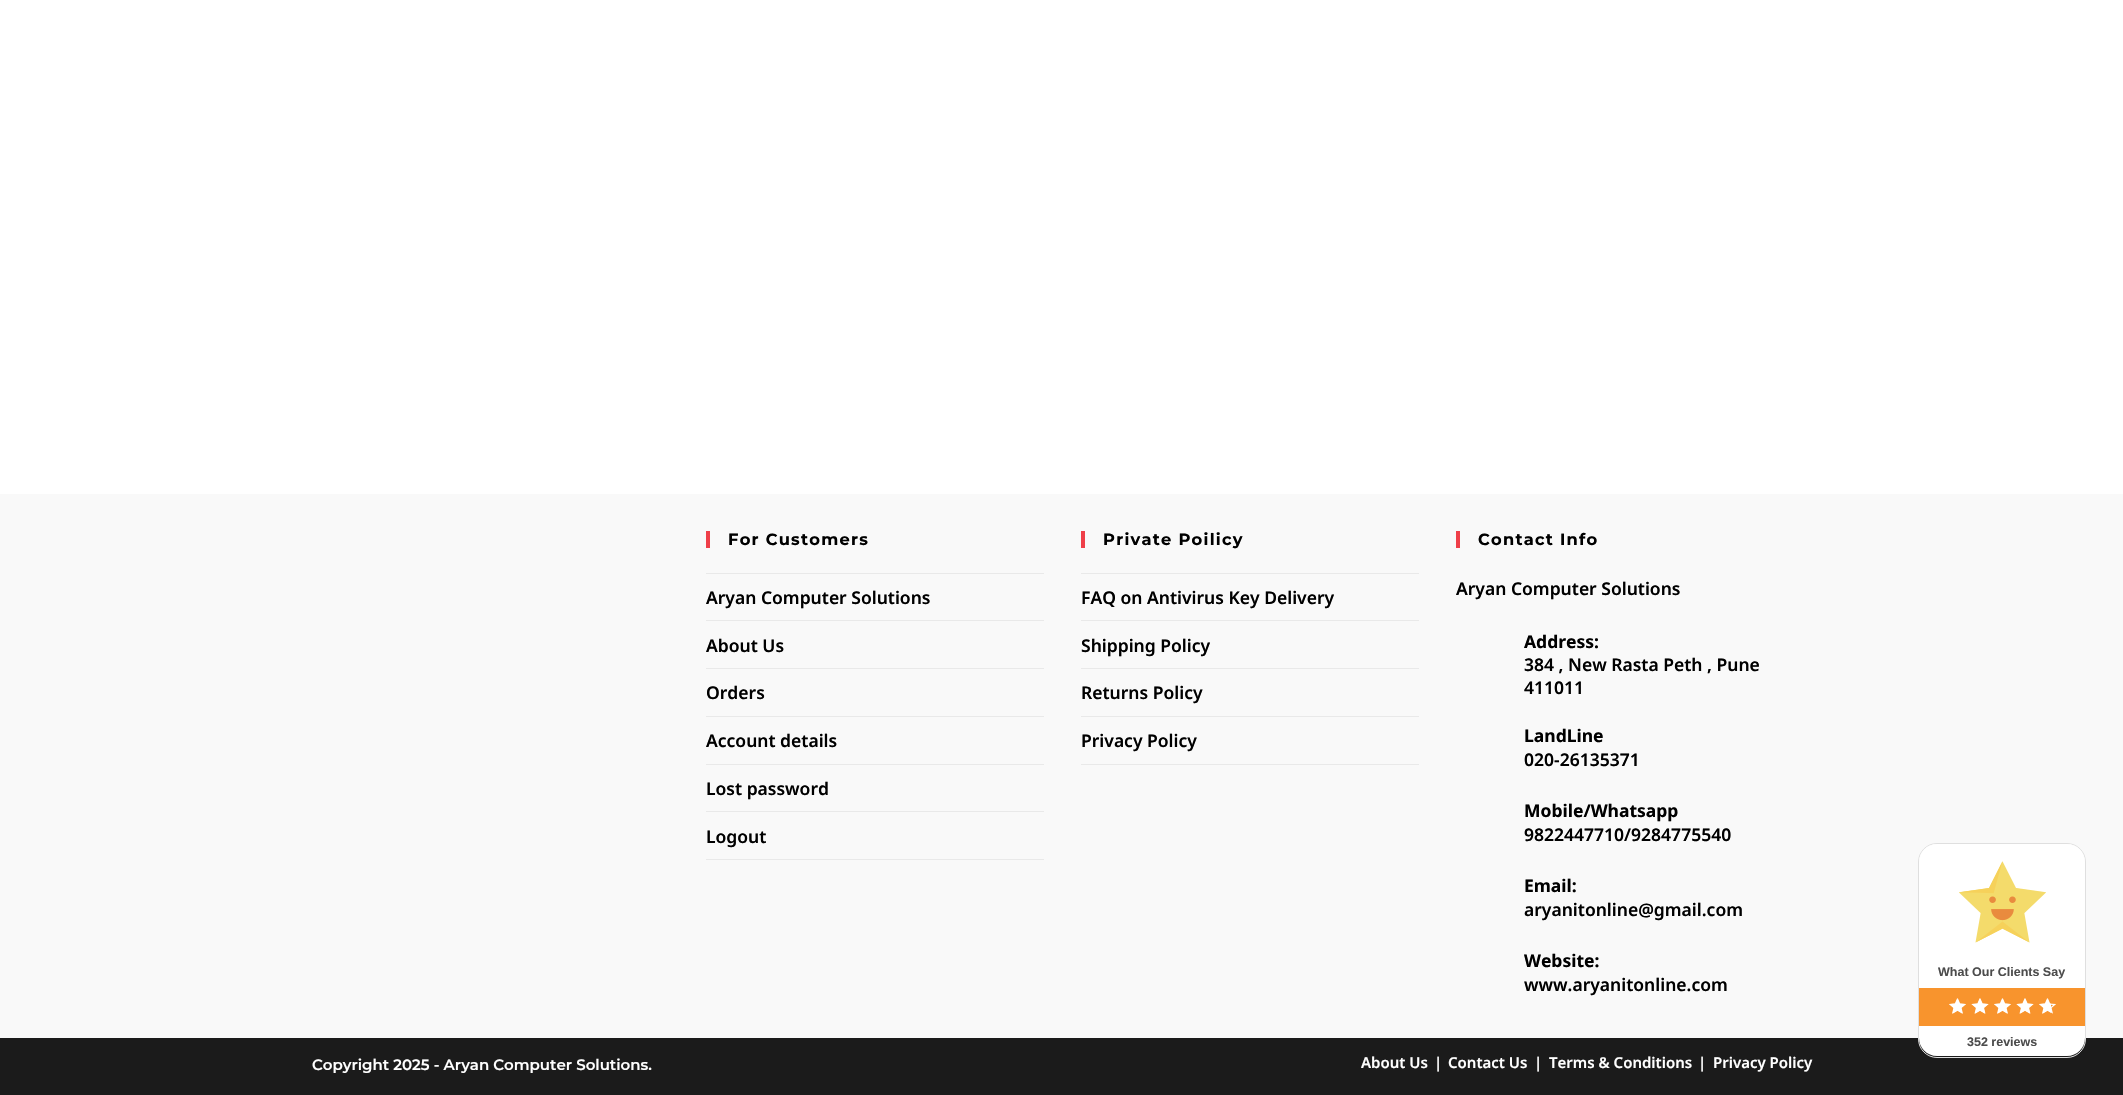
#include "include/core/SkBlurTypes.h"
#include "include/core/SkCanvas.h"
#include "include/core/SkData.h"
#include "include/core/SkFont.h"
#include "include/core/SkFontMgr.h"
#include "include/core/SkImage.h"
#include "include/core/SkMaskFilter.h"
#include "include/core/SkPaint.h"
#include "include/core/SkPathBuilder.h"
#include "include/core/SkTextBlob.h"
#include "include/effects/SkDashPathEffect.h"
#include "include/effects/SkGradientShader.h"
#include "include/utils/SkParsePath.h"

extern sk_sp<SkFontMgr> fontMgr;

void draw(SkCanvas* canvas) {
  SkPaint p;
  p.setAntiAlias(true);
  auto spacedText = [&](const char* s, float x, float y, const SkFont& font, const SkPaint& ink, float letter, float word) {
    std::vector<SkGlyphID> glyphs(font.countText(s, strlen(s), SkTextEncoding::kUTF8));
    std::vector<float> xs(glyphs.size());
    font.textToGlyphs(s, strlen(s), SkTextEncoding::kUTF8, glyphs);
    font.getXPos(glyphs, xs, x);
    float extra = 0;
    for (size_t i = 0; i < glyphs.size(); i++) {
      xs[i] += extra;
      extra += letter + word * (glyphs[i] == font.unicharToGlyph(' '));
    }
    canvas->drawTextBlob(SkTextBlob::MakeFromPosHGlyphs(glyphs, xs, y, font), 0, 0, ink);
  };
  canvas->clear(SK_ColorWHITE);
  p.setColor(SkColorSetRGB(249, 249, 249));
  canvas->drawRect(SkRect::MakeLTRB(0, 494, 2123, 1038), p);
  p.setColor(SkColorSetRGB(239, 63, 73));
  canvas->drawRect(SkRect::MakeLTRB(706, 531, 710, 548), p);
  p.setColor(SkColorSetRGB(233, 233, 233));
  canvas->drawRect(SkRect::MakeLTRB(706, 573, 1044, 574), p);
  canvas->drawRect(SkRect::MakeLTRB(706, 620, 1044, 621), p);
  canvas->drawRect(SkRect::MakeLTRB(706, 668, 1044, 669), p);
  canvas->drawRect(SkRect::MakeLTRB(706, 716, 1044, 717), p);
  canvas->drawRect(SkRect::MakeLTRB(706, 764, 1044, 765), p);
  canvas->drawRect(SkRect::MakeLTRB(706, 811, 1044, 812), p);
  canvas->drawRect(SkRect::MakeLTRB(706, 859, 1044, 860), p);
  p.setColor(SkColorSetRGB(239, 63, 73));
  canvas->drawRect(SkRect::MakeLTRB(1081, 531, 1085, 548), p);
  p.setColor(SkColorSetRGB(233, 233, 233));
  canvas->drawRect(SkRect::MakeLTRB(1081, 573, 1419, 574), p);
  canvas->drawRect(SkRect::MakeLTRB(1081, 620, 1419, 621), p);
  canvas->drawRect(SkRect::MakeLTRB(1081, 668, 1419, 669), p);
  canvas->drawRect(SkRect::MakeLTRB(1081, 716, 1419, 717), p);
  canvas->drawRect(SkRect::MakeLTRB(1081, 764, 1419, 765), p);
  p.setColor(SkColorSetRGB(239, 63, 73));
  canvas->drawRect(SkRect::MakeLTRB(1456, 531, 1460, 548), p);
  p.setColor(SkColorSetRGB(27, 27, 27));
  canvas->drawRect(SkRect::MakeLTRB(0, 1038, 2123, 1095), p);
  p.setStyle(SkPaint::kStroke_Style);
  p.setStrokeWidth(1);
  p.setColor(SkColorSetRGB(223, 223, 223));
  canvas->drawRoundRect(SkRect::MakeLTRB(1918.5f, 843.5f, 2085.5f, 1057.5f), 18.5f, 18.5f, p);
  p.setStyle(SkPaint::kFill_Style);
  p.setColor(SK_ColorWHITE);
  canvas->drawPath(SkPathBuilder().moveTo(1937, 844).lineTo(2067, 844).cubicTo(2077, 844, 2085, 852, 2085, 862).lineTo(2085, 988).lineTo(1919, 988).lineTo(1919, 862).cubicTo(1919, 852, 1927, 844, 1937, 844).close().detach(), p);
  p.setColor(SkColorSetRGB(248, 148, 45));
  canvas->drawRect(SkRect::MakeLTRB(1919, 988, 2085, 1026), p);
  p.setColor(SK_ColorWHITE);
  canvas->drawPath(SkPathBuilder().moveTo(1919, 1026).lineTo(2085, 1026).lineTo(2085, 1038).cubicTo(2085, 1048, 2077, 1056, 2067, 1056).lineTo(1937, 1056).cubicTo(1927, 1056, 1919, 1048, 1919, 1038).close().detach(), p);
  canvas->drawImageRect(SkImages::DeferredFromEncodedData(SkData::MakeFromFileName("images/1.png")), SkRect::MakeLTRB(1959, 861, 2046, 943), SkSamplingOptions());
  canvas->drawImageRect(SkImages::DeferredFromEncodedData(SkData::MakeFromFileName("images/2.png")), SkRect::MakeLTRB(1949, 998, 1966, 1014), SkSamplingOptions());
  canvas->drawImageRect(SkImages::DeferredFromEncodedData(SkData::MakeFromFileName("images/3.png")), SkRect::MakeLTRB(1949, 998, 1966, 1014), SkSamplingOptions());
  canvas->drawImageRect(SkImages::DeferredFromEncodedData(SkData::MakeFromFileName("images/5.png")), SkRect::MakeLTRB(1972, 998, 1989, 1014), SkSamplingOptions());
  canvas->drawImageRect(SkImages::DeferredFromEncodedData(SkData::MakeFromFileName("images/4.png")), SkRect::MakeLTRB(1971, 998, 1988, 1014), SkSamplingOptions());
  canvas->drawImageRect(SkImages::DeferredFromEncodedData(SkData::MakeFromFileName("images/2.png")), SkRect::MakeLTRB(1994, 998, 2011, 1014), SkSamplingOptions());
  canvas->drawImageRect(SkImages::DeferredFromEncodedData(SkData::MakeFromFileName("images/3.png")), SkRect::MakeLTRB(1994, 998, 2011, 1014), SkSamplingOptions());
  canvas->drawImageRect(SkImages::DeferredFromEncodedData(SkData::MakeFromFileName("images/5.png")), SkRect::MakeLTRB(2017, 998, 2034, 1014), SkSamplingOptions());
  canvas->drawImageRect(SkImages::DeferredFromEncodedData(SkData::MakeFromFileName("images/4.png")), SkRect::MakeLTRB(2016, 998, 2033, 1014), SkSamplingOptions());
  canvas->drawImageRect(SkImages::DeferredFromEncodedData(SkData::MakeFromFileName("images/2.png")), SkRect::MakeLTRB(2039, 998, 2056, 1014), SkSamplingOptions());
  canvas->drawImageRect(SkImages::DeferredFromEncodedData(SkData::MakeFromFileName("images/6.png")), SkRect::MakeLTRB(2039, 998, 2051, 1014), SkSamplingOptions());
  SkFont font1(fontMgr->matchFamilyStyle("Montserrat", SkFontStyle::Bold()), 16.25f);
  font1.setSubpixel(true);
  p.setColor(SK_ColorBLACK);
  spacedText("For Customers", 728, 545, font1, p, 1.25f, 0);
  SkFont font2(fontMgr->matchFamilyStyle("Noto Sans", SkFontStyle(600, SkFontStyle::kNormal_Width, SkFontStyle::kUpright_Slant)), 17.5f);
  font2.setSubpixel(true);
  canvas->drawString("Aryan Computer Solutions", 706, 604, font2, p);
  canvas->drawString("About Us", 706, 652, font2, p);
  canvas->drawString("Orders", 706, 699, font2, p);
  canvas->drawString("Account details", 706, 747, font2, p);
  canvas->drawString("Lost password", 706, 795, font2, p);
  canvas->drawString("Logout", 706, 843, font2, p);
  spacedText("Private Poilicy", 1103, 545, font1, p, 1.25f, 0);
  canvas->drawString("FAQ on Antivirus Key Delivery", 1081, 604, font2, p);
  canvas->drawString("Shipping Policy", 1081, 652, font2, p);
  canvas->drawString("Returns Policy", 1081, 699, font2, p);
  canvas->drawString("Privacy Policy", 1081, 747, font2, p);
  spacedText("Contact Info", 1478, 545, font1, p, 1.25f, 0);
  canvas->drawString("Aryan Computer Solutions", 1456, 595, font2, p);
  SkFont font3(fontMgr->matchFamilyStyle("Noto Sans", SkFontStyle::Bold()), 17.5f);
  font3.setSubpixel(true);
  canvas->drawString("Address:", 1524, 648, font3, p);
  canvas->drawString("384 , New Rasta Peth , Pune", 1524, 671, font2, p);
  canvas->drawString("411011", 1524, 694, font2, p);
  canvas->drawString("LandLine", 1524, 742, font3, p);
  canvas->drawString("020-26135371", 1524, 766, font2, p);
  canvas->drawString("Mobile/Whatsapp", 1524, 817, font3, p);
  canvas->drawString("9822447710/9284775540", 1524, 841, font2, p);
  canvas->drawString("Email:", 1524, 892, font3, p);
  canvas->drawString("aryanitonline@gmail.com", 1524, 916, font2, p);
  canvas->drawString("Website:", 1524, 967, font3, p);
  canvas->drawString("www.aryanitonline.com", 1524, 991, font2, p);
  SkFont font4(fontMgr->matchFamilyStyle("Montserrat", SkFontStyle(600, SkFontStyle::kNormal_Width, SkFontStyle::kUpright_Slant)), 15);
  font4.setSubpixel(true);
  p.setColor(SK_ColorWHITE);
  canvas->drawString("Copyright 2025 - Aryan Computer Solutions.", 312, 1070, font4, p);
  SkFont font5(fontMgr->matchFamilyStyle("Noto Sans", SkFontStyle(600, SkFontStyle::kNormal_Width, SkFontStyle::kUpright_Slant)), 15);
  font5.setSubpixel(true);
  canvas->drawString("About Us", 1361, 1068, font5, p);
  canvas->drawString("|", 1434, 1068, font5, p);
  canvas->drawString("Contact Us", 1448, 1068, font5, p);
  canvas->drawString("|", 1534, 1068, font5, p);
  canvas->drawString("Terms & Conditions", 1549, 1068, font5, p);
  canvas->drawString("|", 1698, 1068, font5, p);
  canvas->drawString("Privacy Policy", 1713, 1068, font5, p);
  SkFont font6(fontMgr->matchFamilyStyle("Liberation Sans", SkFontStyle::Bold()), 12.5f);
  font6.setSubpixel(true);
  p.setColor(SkColorSetRGB(76, 76, 76));
  canvas->drawString("What Our Clients Say", 1938, 976, font6, p);
  canvas->drawString("352 reviews", 1967, 1046, font6, p);
}
